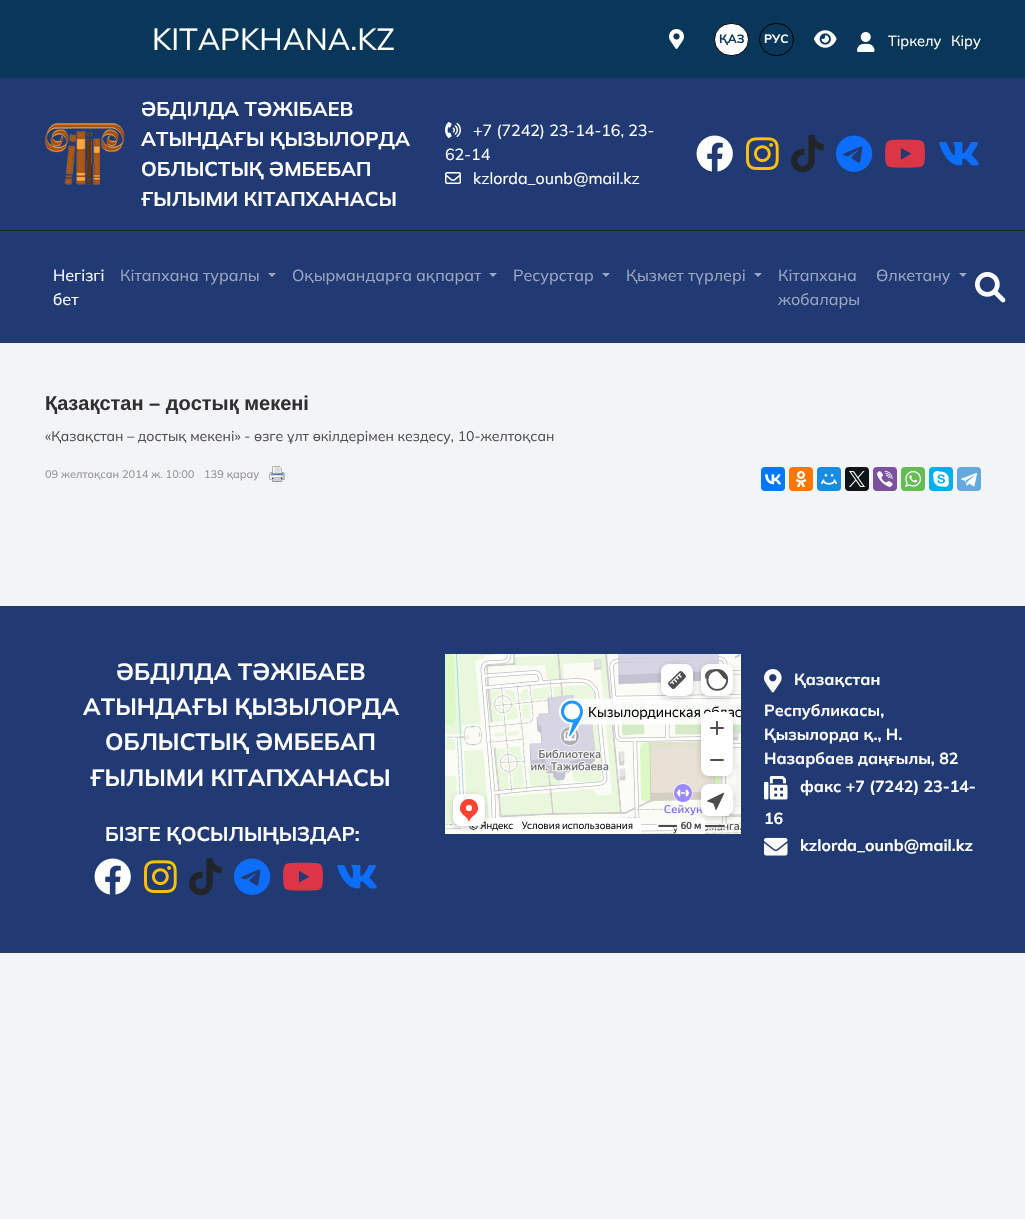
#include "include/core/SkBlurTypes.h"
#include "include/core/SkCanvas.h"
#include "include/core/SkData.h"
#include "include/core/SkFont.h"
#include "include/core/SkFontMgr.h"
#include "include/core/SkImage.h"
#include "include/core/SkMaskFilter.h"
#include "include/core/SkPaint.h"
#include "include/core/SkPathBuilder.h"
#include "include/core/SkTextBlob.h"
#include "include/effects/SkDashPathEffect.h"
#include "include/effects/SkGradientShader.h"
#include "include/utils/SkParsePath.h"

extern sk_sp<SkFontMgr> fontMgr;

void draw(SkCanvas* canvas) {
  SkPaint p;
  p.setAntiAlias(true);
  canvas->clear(SkColorSetRGB(243, 244, 248));
  p.setColor(SkColorSetRGB(9, 55, 89));
  canvas->drawRect(SkRect::MakeLTRB(0, 0, 1025, 78), p);
  canvas->drawImageRect(SkImages::DeferredFromEncodedData(SkData::MakeFromFileName("images/1.png")), SkRect::MakeLTRB(669, 29, 684, 49), SkSamplingOptions());
  p.setColor(SK_ColorWHITE);
  canvas->drawRoundRect(SkRect::MakeLTRB(714.5f, 23.5f, 748.5f, 55.5f), 16, 16, p);
  p.setStyle(SkPaint::kStroke_Style);
  p.setStrokeWidth(1);
  p.setColor(SK_ColorBLACK);
  canvas->drawRoundRect(SkRect::MakeLTRB(714.5f, 23.5f, 748.5f, 55.5f), 16, 16, p);
  canvas->drawRoundRect(SkRect::MakeLTRB(759.5f, 23.5f, 793.5f, 55.5f), 16, 16, p);
  canvas->drawImageRect(SkImages::DeferredFromEncodedData(SkData::MakeFromFileName("images/2.png")), SkRect::MakeLTRB(814, 30, 837, 48), SkSamplingOptions());
  canvas->drawImageRect(SkImages::DeferredFromEncodedData(SkData::MakeFromFileName("images/3.png")), SkRect::MakeLTRB(857, 32, 875, 52), SkSamplingOptions());
  p.setStyle(SkPaint::kFill_Style);
  p.setColor(SkColorSetRGB(34, 58, 116));
  canvas->drawRect(SkRect::MakeLTRB(0, 78, 1025, 230), p);
  p.setColor(SkColorSetRGB(33, 37, 41));
  canvas->drawRect(SkRect::MakeLTRB(0, 230, 1025, 231), p);
  canvas->drawImageRect(SkImages::DeferredFromEncodedData(SkData::MakeFromFileName("images/4.png")), SkRect::MakeLTRB(45, 123, 125, 185), SkSamplingOptions());
  canvas->drawImageRect(SkImages::DeferredFromEncodedData(SkData::MakeFromFileName("images/5.png")), SkRect::MakeLTRB(445, 122, 461, 138), SkSamplingOptions());
  canvas->drawImageRect(SkImages::DeferredFromEncodedData(SkData::MakeFromFileName("images/6.png")), SkRect::MakeLTRB(445, 172, 461, 184), SkSamplingOptions());
  canvas->drawImageRect(SkImages::DeferredFromEncodedData(SkData::MakeFromFileName("images/7.png")), SkRect::MakeLTRB(696, 135, 733, 172), SkSamplingOptions());
  canvas->drawImageRect(SkImages::DeferredFromEncodedData(SkData::MakeFromFileName("images/8.png")), SkRect::MakeLTRB(746, 137, 779, 170), SkSamplingOptions());
  canvas->drawImageRect(SkImages::DeferredFromEncodedData(SkData::MakeFromFileName("images/9.png")), SkRect::MakeLTRB(791, 135, 824, 173), SkSamplingOptions());
  canvas->drawImageRect(SkImages::DeferredFromEncodedData(SkData::MakeFromFileName("images/10.png")), SkRect::MakeLTRB(836, 135, 873, 172), SkSamplingOptions());
  canvas->drawImageRect(SkImages::DeferredFromEncodedData(SkData::MakeFromFileName("images/11.png")), SkRect::MakeLTRB(885, 139, 925, 168), SkSamplingOptions());
  canvas->drawImageRect(SkImages::DeferredFromEncodedData(SkData::MakeFromFileName("images/12.png")), SkRect::MakeLTRB(939, 142, 979, 166), SkSamplingOptions());
  p.setColor(SkColorSetRGB(34, 58, 116));
  canvas->drawRect(SkRect::MakeLTRB(0, 231, 1025, 343), p);
  p.setColor(SkColorSetRGB(156, 166, 192));
  canvas->drawPath(SkPathBuilder().moveTo(268, 273).lineTo(276, 273).lineTo(272, 277).close().detach(), p);
  canvas->drawPath(SkPathBuilder().moveTo(489, 273).lineTo(497, 273).lineTo(493, 277).close().detach(), p);
  canvas->drawPath(SkPathBuilder().moveTo(602, 273).lineTo(610, 273).lineTo(606, 277).close().detach(), p);
  canvas->drawPath(SkPathBuilder().moveTo(754, 273).lineTo(762, 273).lineTo(758, 277).close().detach(), p);
  canvas->drawPath(SkPathBuilder().moveTo(959, 273).lineTo(967, 273).lineTo(963, 277).close().detach(), p);
  canvas->drawImageRect(SkImages::DeferredFromEncodedData(SkData::MakeFromFileName("images/13.png")), SkRect::MakeLTRB(975, 272, 1006, 303), SkSamplingOptions());
  canvas->drawImageRect(SkImages::DeferredFromEncodedData(SkData::MakeFromFileName("images/14.png")), SkRect::MakeLTRB(269, 466, 285, 482), SkSamplingOptions());
  p.setColor(SkColorSetRGB(0, 119, 255));
  canvas->drawRoundRect(SkRect::MakeLTRB(761, 467, 785, 491), 4, 4, p);
  canvas->drawImageRect(SkImages::DeferredFromEncodedData(SkData::MakeFromFileName("images/15.png")), SkRect::MakeLTRB(765, 474, 781, 485), SkSamplingOptions());
  p.setColor(SkColorSetRGB(255, 119, 0));
  canvas->drawRoundRect(SkRect::MakeLTRB(789, 467, 813, 491), 4, 4, p);
  canvas->drawImageRect(SkImages::DeferredFromEncodedData(SkData::MakeFromFileName("images/16.png")), SkRect::MakeLTRB(795, 471, 807, 487), SkSamplingOptions());
  p.setColor(SkColorSetRGB(22, 141, 226));
  canvas->drawRoundRect(SkRect::MakeLTRB(817, 467, 841, 491), 4, 4, p);
  canvas->drawImageRect(SkImages::DeferredFromEncodedData(SkData::MakeFromFileName("images/17.png")), SkRect::MakeLTRB(821, 474, 837, 485), SkSamplingOptions());
  p.setColor(SkColorSetRGB(15, 20, 25));
  canvas->drawRoundRect(SkRect::MakeLTRB(845, 467, 869, 491), 4, 4, p);
  canvas->drawImageRect(SkImages::DeferredFromEncodedData(SkData::MakeFromFileName("images/18.png")), SkRect::MakeLTRB(849, 471, 865, 487), SkSamplingOptions());
  p.setColor(SkColorSetRGB(123, 81, 157));
  canvas->drawRoundRect(SkRect::MakeLTRB(873, 467, 897, 491), 4, 4, p);
  canvas->drawImageRect(SkImages::DeferredFromEncodedData(SkData::MakeFromFileName("images/19.png")), SkRect::MakeLTRB(877, 471, 893, 487), SkSamplingOptions());
  p.setColor(SkColorSetRGB(101, 188, 84));
  canvas->drawRoundRect(SkRect::MakeLTRB(901, 467, 925, 491), 4, 4, p);
  canvas->drawImageRect(SkImages::DeferredFromEncodedData(SkData::MakeFromFileName("images/20.png")), SkRect::MakeLTRB(905, 471, 921, 487), SkSamplingOptions());
  p.setColor(SkColorSetRGB(0, 175, 240));
  canvas->drawRoundRect(SkRect::MakeLTRB(929, 467, 953, 491), 4, 4, p);
  canvas->drawImageRect(SkImages::DeferredFromEncodedData(SkData::MakeFromFileName("images/21.png")), SkRect::MakeLTRB(933, 471, 949, 487), SkSamplingOptions());
  p.setColor(SkColorSetRGB(100, 169, 220));
  canvas->drawRoundRect(SkRect::MakeLTRB(957, 467, 981, 491), 4, 4, p);
  canvas->drawImageRect(SkImages::DeferredFromEncodedData(SkData::MakeFromFileName("images/22.png")), SkRect::MakeLTRB(961, 473, 977, 487), SkSamplingOptions());
  p.setColor(SkColorSetRGB(34, 58, 116));
  canvas->drawRect(SkRect::MakeLTRB(0, 606, 1025, 953), p);
  canvas->drawImageRect(SkImages::DeferredFromEncodedData(SkData::MakeFromFileName("images/7.png")), SkRect::MakeLTRB(94, 858, 131, 895), SkSamplingOptions());
  canvas->drawImageRect(SkImages::DeferredFromEncodedData(SkData::MakeFromFileName("images/8.png")), SkRect::MakeLTRB(144, 860, 177, 893), SkSamplingOptions());
  canvas->drawImageRect(SkImages::DeferredFromEncodedData(SkData::MakeFromFileName("images/9.png")), SkRect::MakeLTRB(189, 858, 222, 896), SkSamplingOptions());
  canvas->drawImageRect(SkImages::DeferredFromEncodedData(SkData::MakeFromFileName("images/10.png")), SkRect::MakeLTRB(234, 858, 271, 895), SkSamplingOptions());
  canvas->drawImageRect(SkImages::DeferredFromEncodedData(SkData::MakeFromFileName("images/11.png")), SkRect::MakeLTRB(283, 862, 323, 891), SkSamplingOptions());
  canvas->drawImageRect(SkImages::DeferredFromEncodedData(SkData::MakeFromFileName("images/12.png")), SkRect::MakeLTRB(337, 865, 377, 889), SkSamplingOptions());
  canvas->drawImageRect(SkImages::DeferredFromEncodedData(SkData::MakeFromFileName("images/23.png")), SkRect::MakeLTRB(445, 654, 741, 834), SkSamplingOptions());
  canvas->drawImageRect(SkImages::DeferredFromEncodedData(SkData::MakeFromFileName("images/24.png")), SkRect::MakeLTRB(764, 669, 782, 693), SkSamplingOptions());
  canvas->drawImageRect(SkImages::DeferredFromEncodedData(SkData::MakeFromFileName("images/25.png")), SkRect::MakeLTRB(764, 776, 788, 800), SkSamplingOptions());
  canvas->drawImageRect(SkImages::DeferredFromEncodedData(SkData::MakeFromFileName("images/26.png")), SkRect::MakeLTRB(764, 837, 788, 856), SkSamplingOptions());
  SkFont font1(fontMgr->matchFamilyStyle("Mulish", SkFontStyle::Normal()), 30.5f);
  font1.setSubpixel(true);
  p.setColor(SK_ColorWHITE);
  canvas->drawString("KITAPKHANA.KZ", 152, 50, font1, p);
  SkFont font2(fontMgr->matchFamilyStyle("Mulish", SkFontStyle::Bold()), 12);
  font2.setSubpixel(true);
  p.setColor(SkColorSetRGB(9, 55, 89));
  canvas->drawString("ҚАЗ", 719, 43, font2, p);
  p.setColor(SK_ColorWHITE);
  canvas->drawString("РУС", 764, 43, font2, p);
  SkFont font3(fontMgr->matchFamilyStyle("Mulish", SkFontStyle::Normal()), 14.5f);
  font3.setSubpixel(true);
  canvas->drawString("Тіркелу", 888, 46, font3, p);
  canvas->drawString("Кіру", 951, 46, font3, p);
  SkFont font4(fontMgr->matchFamilyStyle("Mulish", SkFontStyle::Bold()), 20);
  font4.setSubpixel(true);
  canvas->drawString("ӘБДІЛДА ТӘЖІБАЕВ", 141, 116, font4, p);
  canvas->drawString("АТЫНДАҒЫ ҚЫЗЫЛОРДА", 141, 146, font4, p);
  canvas->drawString("ОБЛЫСТЫҚ ӘМБЕБАП", 141, 176, font4, p);
  canvas->drawString("ҒЫЛЫМИ КІТАПХАНАСЫ", 141, 206, font4, p);
  SkFont font5(fontMgr->matchFamilyStyle("Mulish", SkFontStyle::Normal()), 16);
  font5.setSubpixel(true);
  canvas->drawString("+7 (7242) 23-14-16, 23-", 473, 136, font5, p);
  canvas->drawString("62-14", 445, 160, font5, p);
  canvas->drawString("kzlorda_ounb@mail.kz", 473, 184, font5, p);
  canvas->drawString("Негізгі", 53, 281, font5, p);
  canvas->drawString("бет", 53, 305, font5, p);
  p.setColor(SkColorSetRGB(156, 166, 192));
  canvas->drawString("Кітапхана туралы", 120, 281, font5, p);
  canvas->drawString("Оқырмандарға ақпарат", 292, 281, font5, p);
  canvas->drawString("Ресурстар", 513, 281, font5, p);
  canvas->drawString("Қызмет түрлері", 626, 281, font5, p);
  canvas->drawString("Кітапхана", 778, 281, font5, p);
  canvas->drawString("жобалары", 778, 305, font5, p);
  canvas->drawString("Өлкетану", 876, 281, font5, p);
  SkFont font6(fontMgr->matchFamilyStyle("Liberation Sans", SkFontStyle::Bold()), 20);
  font6.setSubpixel(true);
  p.setColor(SkColorSetRGB(48, 48, 48));
  canvas->drawString("Қазақстан – достық мекені", 45, 410, font6, p);
  SkFont font7(fontMgr->matchFamilyStyle("Mulish", SkFontStyle::Normal()), 14);
  font7.setSubpixel(true);
  p.setColor(SkColorSetRGB(80, 80, 80));
  canvas->drawString("«Қазақстан – достық мекені» - өзге ұлт өкілдерімен кездесу, 10-желтоқсан", 45, 441, font7, p);
  SkFont font8(fontMgr->matchFamilyStyle("Mulish", SkFontStyle::Normal()), 11);
  font8.setSubpixel(true);
  p.setColor(SkColorSetRGB(144, 144, 144));
  canvas->drawString("09 желтоқсан 2014 ж. 10:00", 45, 478, font8, p);
  canvas->drawString("139 қарау", 204, 478, font8, p);
  SkFont font9(fontMgr->matchFamilyStyle("Mulish", SkFontStyle::Bold()), 23.5f);
  font9.setSubpixel(true);
  p.setColor(SK_ColorWHITE);
  canvas->drawString("ӘБДІЛДА ТӘЖІБАЕВ", 116, 680, font9, p);
  canvas->drawString("АТЫНДАҒЫ ҚЫЗЫЛОРДА", 83, 715, font9, p);
  canvas->drawString("ОБЛЫСТЫҚ ӘМБЕБАП", 105, 750, font9, p);
  canvas->drawString("ҒЫЛЫМИ КІТАПХАНАСЫ", 90, 786, font9, p);
  canvas->drawString("БІЗГЕ ҚОСЫЛЫҢЫЗДАР:", 105, 841, font4, p);
  SkFont font10(fontMgr->matchFamilyStyle("Mulish", SkFontStyle::Bold()), 16);
  font10.setSubpixel(true);
  canvas->drawString("Қазақстан", 794, 685, font10, p);
  canvas->drawString("Республикасы,", 764, 716, font10, p);
  canvas->drawString("Қызылорда қ., Н.", 764, 740, font10, p);
  canvas->drawString("Назарбаев даңғылы, 82", 764, 764, font10, p);
  canvas->drawString("факс +7 (7242) 23-14-", 800, 792, font10, p);
  canvas->drawString("16", 764, 824, font10, p);
  canvas->drawString("kzlorda_ounb@mail.kz", 800, 851, font10, p);
}
